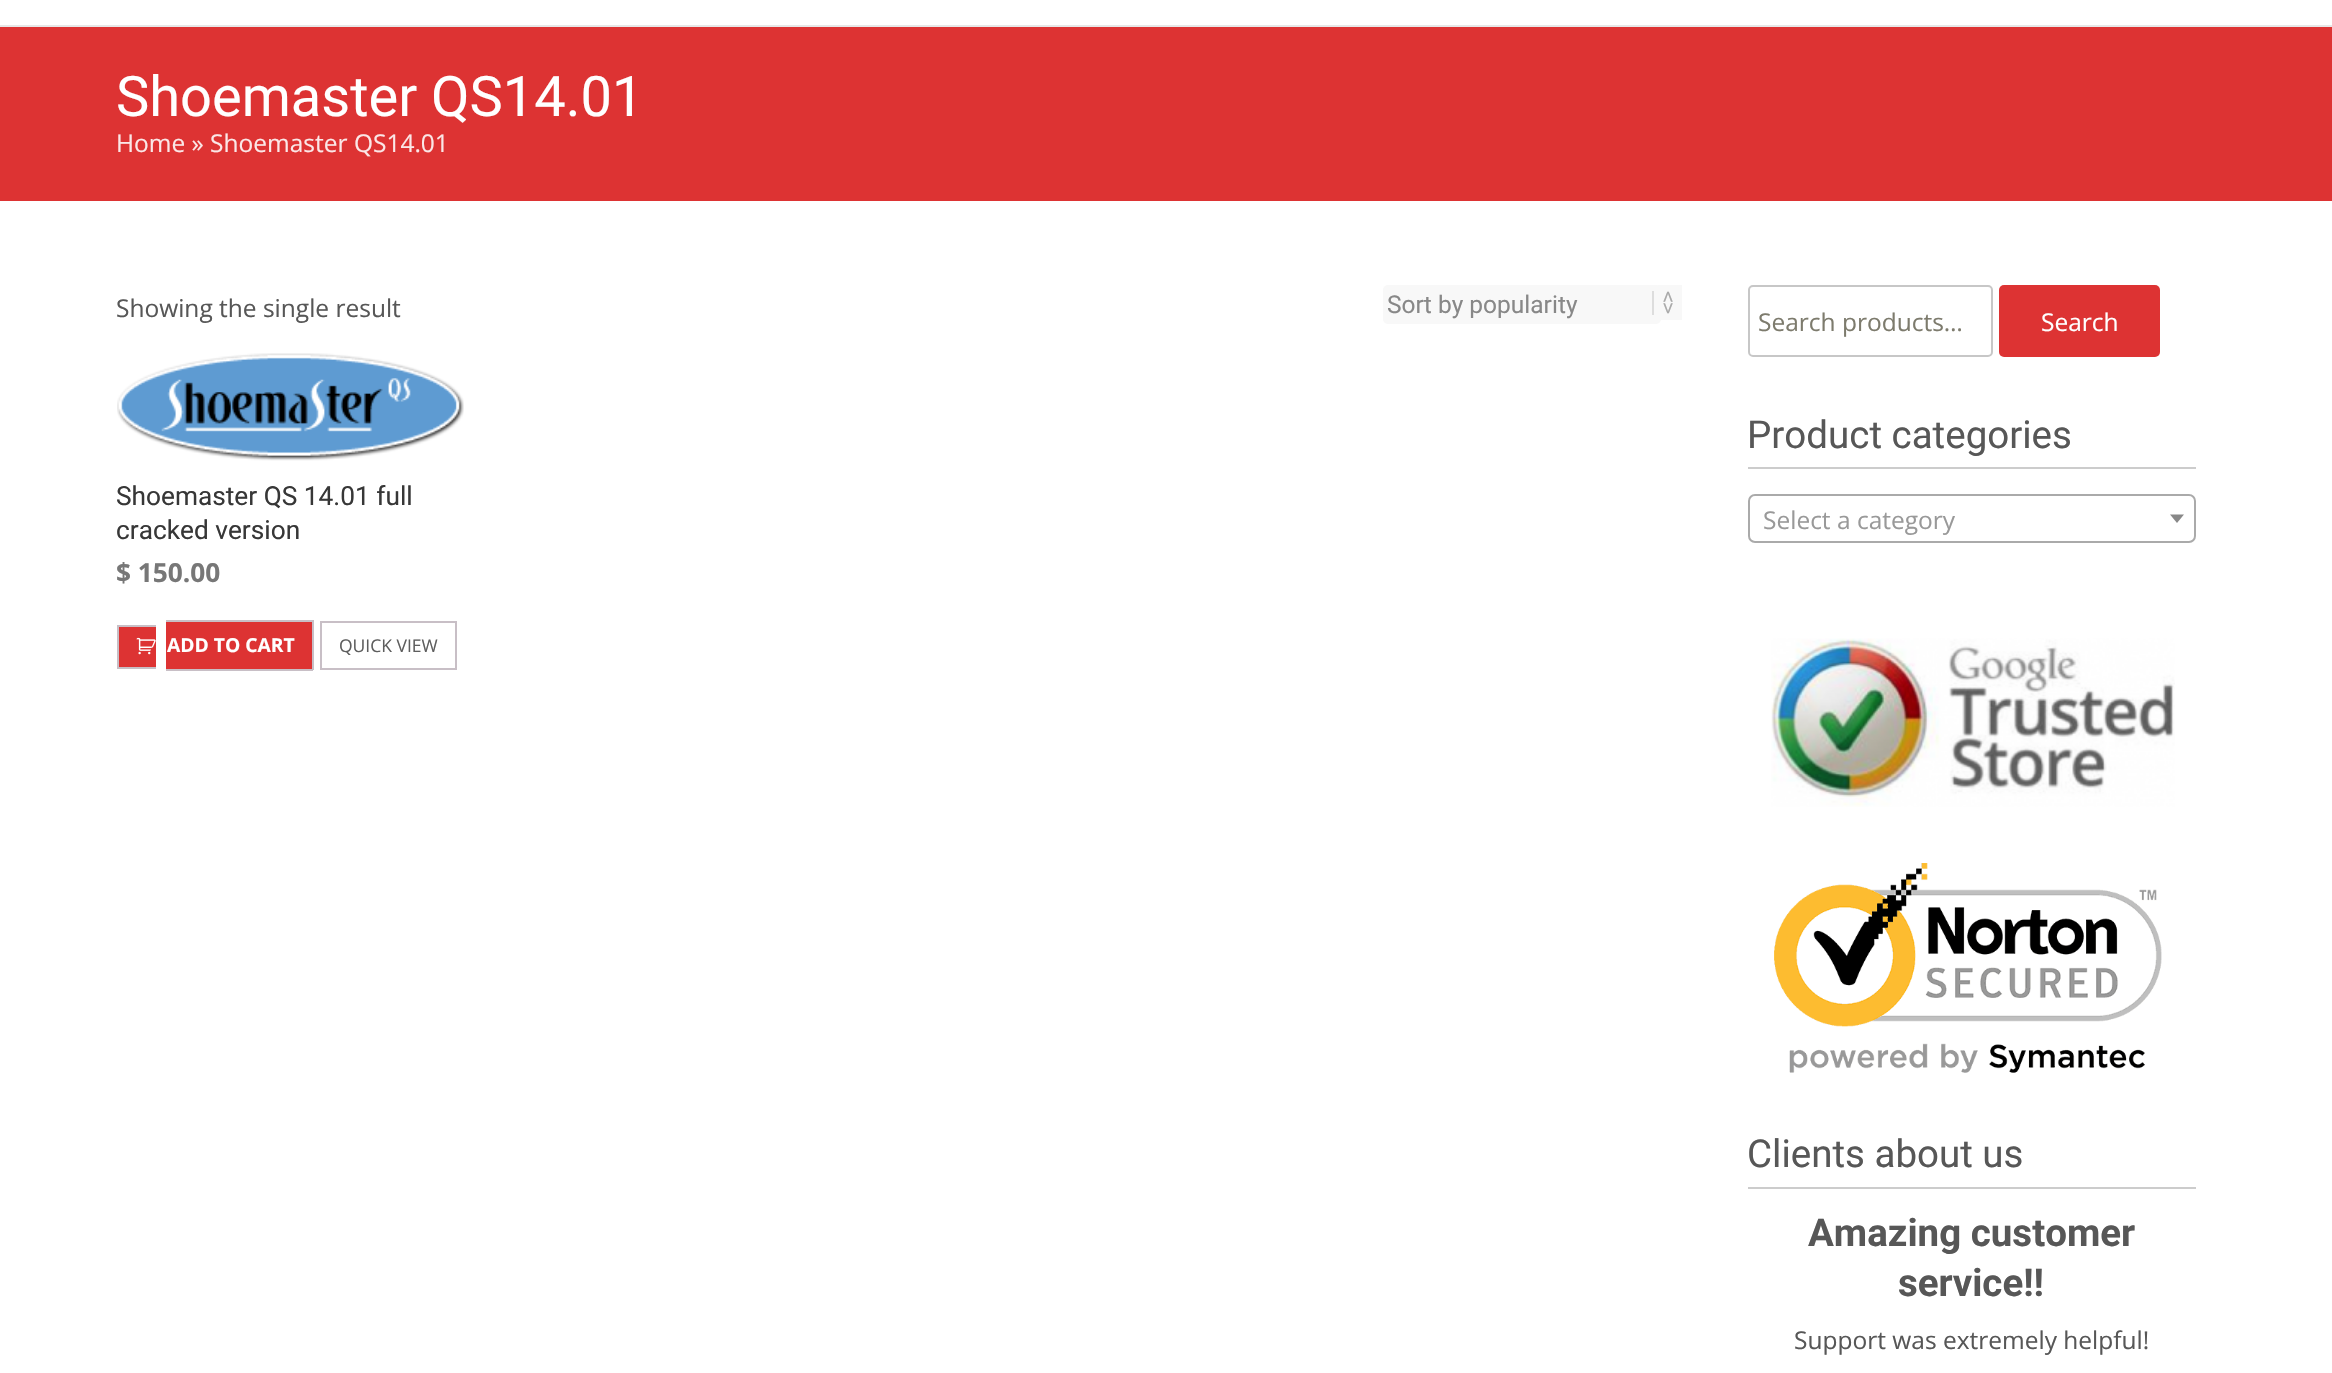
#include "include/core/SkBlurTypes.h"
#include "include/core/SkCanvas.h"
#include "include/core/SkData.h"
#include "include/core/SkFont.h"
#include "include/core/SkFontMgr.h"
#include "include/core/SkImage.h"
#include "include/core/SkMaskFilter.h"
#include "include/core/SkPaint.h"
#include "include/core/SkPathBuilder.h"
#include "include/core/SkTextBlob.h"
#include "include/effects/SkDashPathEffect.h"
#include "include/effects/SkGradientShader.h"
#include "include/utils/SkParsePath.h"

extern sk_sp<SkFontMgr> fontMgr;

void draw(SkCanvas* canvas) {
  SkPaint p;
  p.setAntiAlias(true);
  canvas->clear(SK_ColorWHITE);
  p.setColor(SkColorSetRGB(231, 231, 231));
  canvas->drawRect(SkRect::MakeLTRB(0, 25, 2332, 27), p);
  p.setColor(SkColorSetRGB(221, 51, 51));
  canvas->drawRect(SkRect::MakeLTRB(0, 27, 2332, 201), p);
  p.setColor(SkColorSetRGB(248, 248, 248));
  canvas->drawRoundRect(SkRect::MakeLTRB(1383, 285, 1661, 324), 5, 5, p);
  canvas->drawRect(SkRect::MakeLTRB(1658, 285, 1682, 320), p);
  p.setColor(SkColorSetRGB(221, 221, 221));
  canvas->drawRect(SkRect::MakeLTRB(1652, 291, 1654, 315), p);
  canvas->drawImageRect(SkImages::DeferredFromEncodedData(SkData::MakeFromFileName("images/1.png")), SkRect::MakeLTRB(117, 353, 464, 461), SkSamplingOptions());
  p.setColor(SkColorSetRGB(221, 51, 51));
  canvas->drawRect(SkRect::MakeLTRB(119, 627, 156, 667), p);
  p.setColor(SkColorSetRGB(200, 191, 198));
  canvas->drawRect(SkRect::MakeLTRB(117, 625, 156, 627), p);
  canvas->drawRect(SkRect::MakeLTRB(117, 667, 156, 669), p);
  canvas->drawRect(SkRect::MakeLTRB(117, 625, 119, 669), p);
  p.setColor(SkColorSetRGB(221, 51, 51));
  canvas->drawRect(SkRect::MakeLTRB(166, 622, 312, 669), p);
  p.setColor(SkColorSetRGB(200, 191, 198));
  canvas->drawRect(SkRect::MakeLTRB(166, 620, 313, 622), p);
  canvas->drawRect(SkRect::MakeLTRB(312, 620, 314, 670), p);
  canvas->drawRect(SkRect::MakeLTRB(166, 669, 313, 671), p);
  canvas->drawImageRect(SkImages::DeferredFromEncodedData(SkData::MakeFromFileName("images/2.png")), SkRect::MakeLTRB(136, 637, 156, 655), SkSamplingOptions());
  p.setStyle(SkPaint::kStroke_Style);
  p.setStrokeWidth(2);
  canvas->drawRect(SkRect::MakeLTRB(321, 622, 456, 669), p);
  p.setColor(SkColorSetRGB(199, 199, 199));
  canvas->drawRoundRect(SkRect::MakeLTRB(1749, 286, 1992, 356), 4, 4, p);
  p.setStyle(SkPaint::kFill_Style);
  p.setColor(SkColorSetRGB(221, 51, 51));
  canvas->drawRoundRect(SkRect::MakeLTRB(1999, 285, 2160, 357), 5, 5, p);
  p.setColor(SkColorSetRGB(204, 204, 204));
  canvas->drawRect(SkRect::MakeLTRB(1748, 467, 2196, 469), p);
  p.setStyle(SkPaint::kStroke_Style);
  p.setColor(SkColorSetRGB(170, 170, 170));
  canvas->drawRoundRect(SkRect::MakeLTRB(1749, 495, 2195, 542), 6, 6, p);
  p.setStyle(SkPaint::kFill_Style);
  p.setColor(SkColorSetRGB(136, 136, 136));
  canvas->drawPath(SkPathBuilder().moveTo(2170, 514.5f).lineTo(2184, 514.5f).lineTo(2177, 523).close().detach(), p);
  canvas->drawImageRect(SkImages::DeferredFromEncodedData(SkData::MakeFromFileName("images/3.png")), SkRect::MakeLTRB(1771, 638, 2175, 807), SkSamplingOptions());
  canvas->drawImageRect(SkImages::DeferredFromEncodedData(SkData::MakeFromFileName("images/4.png")), SkRect::MakeLTRB(1774, 863, 2162, 1073), SkSamplingOptions());
  p.setColor(SkColorSetRGB(204, 204, 204));
  canvas->drawRect(SkRect::MakeLTRB(1748, 1187, 2196, 1189), p);
  SkFont font1(fontMgr->matchFamilyStyle("Roboto", SkFontStyle::Normal()), 56);
  font1.setSubpixel(true);
  p.setColor(SK_ColorWHITE);
  canvas->drawString("Shoemaster QS14.01", 116, 116, font1, p);
  SkFont font2(fontMgr->matchFamilyStyle("Open Sans", SkFontStyle::Normal()), 24.5f);
  font2.setSubpixel(true);
  p.setColor(SkColorSetRGB(251, 231, 231));
  canvas->drawString("Home » Shoemaster QS14.01", 116, 152, font2, p);
  p.setColor(SkColorSetRGB(87, 87, 87));
  canvas->drawString("Showing the single result", 116, 317, font2, p);
  SkFont font3(fontMgr->matchFamilyStyle("Roboto", SkFontStyle::Normal()), 24.5f);
  font3.setSubpixel(true);
  p.setColor(SkColorSetRGB(136, 136, 136));
  canvas->drawString("Sort by popularity", 1387, 313, font3, p);
  SkFont font4(fontMgr->matchFamilyStyle("DejaVu Sans Mono", SkFontStyle::Normal()), 19.25f);
  font4.setSubpixel(true);
  p.setColor(SkColorSetRGB(170, 170, 170));
  canvas->save();
  canvas->rotate(90, 1662, 291);
  canvas->drawString("<>", 1662, 291, font4, p);
  canvas->restore();
  SkFont font5(fontMgr->matchFamilyStyle("Roboto", SkFontStyle::Normal()), 26.25f);
  font5.setSubpixel(true);
  p.setColor(SkColorSetRGB(55, 55, 55));
  canvas->drawString("Shoemaster QS 14.01 full", 116, 505, font5, p);
  canvas->drawString("cracked version", 116, 539, font5, p);
  SkFont font6(fontMgr->matchFamilyStyle("Open Sans", SkFontStyle::Bold()), 26.25f);
  font6.setSubpixel(true);
  p.setColor(SkColorSetRGB(119, 119, 119));
  canvas->drawString("$ 150.00", 116, 582, font6, p);
  SkFont font7(fontMgr->matchFamilyStyle("Open Sans", SkFontStyle::Bold()), 19.25f);
  font7.setSubpixel(true);
  p.setColor(SK_ColorWHITE);
  canvas->drawString("ADD TO CART", 167, 652, font7, p);
  SkFont font8(fontMgr->matchFamilyStyle("Open Sans", SkFontStyle::Normal()), 17.5f);
  font8.setSubpixel(true);
  p.setColor(SkColorSetRGB(94, 94, 94));
  canvas->drawString("QUICK VIEW", 339, 652, font8, p);
  p.setColor(SkColorSetRGB(125, 123, 109));
  canvas->drawString("Search products…", 1758, 331, font2, p);
  p.setColor(SK_ColorWHITE);
  canvas->drawString("Search", 2041, 331, font2, p);
  SkFont font9(fontMgr->matchFamilyStyle("Roboto", SkFontStyle::Normal()), 38.5f);
  font9.setSubpixel(true);
  p.setColor(SkColorSetRGB(87, 87, 87));
  canvas->drawString("Product categories", 1747, 448, font9, p);
  p.setColor(SkColorSetRGB(153, 153, 153));
  canvas->drawString("Select a category", 1763, 529, font2, p);
  p.setColor(SkColorSetRGB(87, 87, 87));
  canvas->drawString("Clients about us", 1747, 1167, font9, p);
  SkFont font10(fontMgr->matchFamilyStyle("Roboto", SkFontStyle::Bold()), 38.5f);
  font10.setSubpixel(true);
  canvas->drawString("Amazing customer", 1808, 1246, font10, p);
  canvas->drawString("service!!", 1898, 1296, font10, p);
  canvas->drawString("Support was extremely helpful!", 1794, 1349, font2, p);
}
